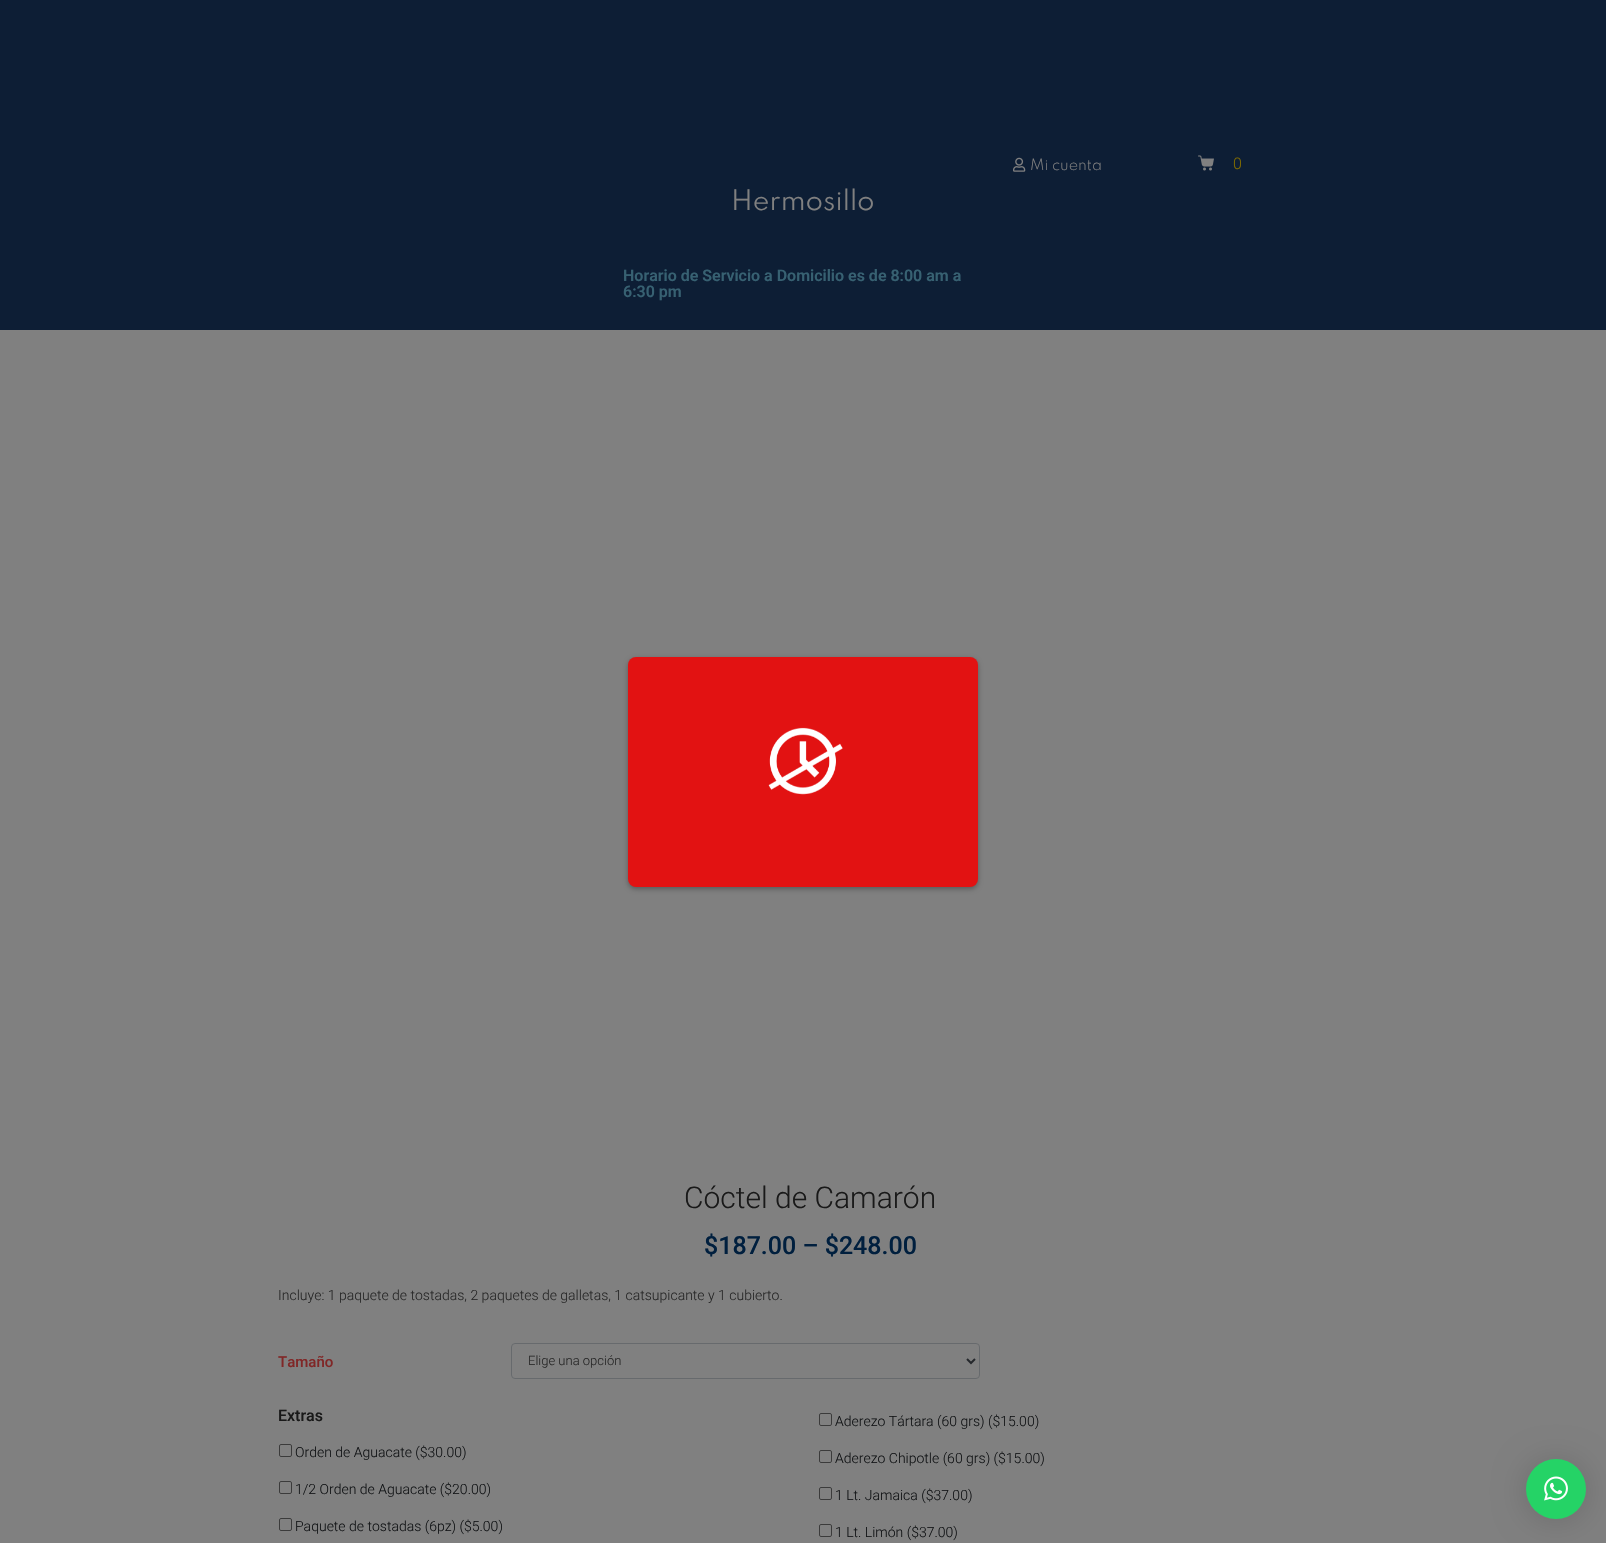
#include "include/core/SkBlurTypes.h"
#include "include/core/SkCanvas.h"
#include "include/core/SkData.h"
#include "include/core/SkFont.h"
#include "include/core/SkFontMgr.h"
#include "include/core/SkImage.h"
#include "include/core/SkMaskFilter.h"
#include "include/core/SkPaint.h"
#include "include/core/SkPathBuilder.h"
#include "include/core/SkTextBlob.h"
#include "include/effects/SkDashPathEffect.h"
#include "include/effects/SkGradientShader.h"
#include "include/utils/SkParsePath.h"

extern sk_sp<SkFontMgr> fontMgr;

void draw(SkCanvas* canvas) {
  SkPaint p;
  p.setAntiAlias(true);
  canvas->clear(SkColorSetRGB(128, 128, 128));
  p.setColor(SkColorSetRGB(13, 30, 53));
  canvas->drawRect(SkRect::MakeLTRB(0, 0, 1606, 330), p);
  canvas->drawImageRect(SkImages::DeferredFromEncodedData(SkData::MakeFromFileName("images/1.png")), SkRect::MakeLTRB(1013, 157, 1026, 172), SkSamplingOptions());
  canvas->drawImageRect(SkImages::DeferredFromEncodedData(SkData::MakeFromFileName("images/2.png")), SkRect::MakeLTRB(1198, 155, 1214, 171), SkSamplingOptions());
  p.setStyle(SkPaint::kStroke_Style);
  p.setStrokeWidth(1);
  p.setColor(SkColorSetRGB(103, 106, 109));
  canvas->drawRoundRect(SkRect::MakeLTRB(511.5f, 1343.5f, 979.5f, 1378.5f), 3.5f, 3.5f, p);
  p.setStrokeWidth(2);
  p.setColor(SkColorSetRGB(37, 40, 44));
  canvas->drawPath(SkPathBuilder().moveTo(967, 1359).lineTo(971, 1363).lineTo(975, 1359).detach(), p);
  p.setStrokeWidth(1);
  p.setColor(SkColorSetRGB(59, 59, 59));
  canvas->drawRoundRect(SkRect::MakeLTRB(819.5f, 1413.5f, 831.5f, 1425.5f), 1.5f, 1.5f, p);
  canvas->drawRoundRect(SkRect::MakeLTRB(279.5f, 1444.5f, 291.5f, 1456.5f), 1.5f, 1.5f, p);
  canvas->drawRoundRect(SkRect::MakeLTRB(819.5f, 1450.5f, 831.5f, 1462.5f), 1.5f, 1.5f, p);
  canvas->drawRoundRect(SkRect::MakeLTRB(279.5f, 1481.5f, 291.5f, 1493.5f), 1.5f, 1.5f, p);
  canvas->drawRoundRect(SkRect::MakeLTRB(819.5f, 1487.5f, 831.5f, 1499.5f), 1.5f, 1.5f, p);
  canvas->drawRoundRect(SkRect::MakeLTRB(279.5f, 1518.5f, 291.5f, 1530.5f), 1.5f, 1.5f, p);
  canvas->drawRoundRect(SkRect::MakeLTRB(819.5f, 1524.5f, 831.5f, 1536.5f), 1.5f, 1.5f, p);
  p.setStyle(SkPaint::kFill_Style);
  p.setColor(SkColorSetARGB(77, 0, 0, 0));
  p.setMaskFilter(SkMaskFilter::MakeBlur(kNormal_SkBlurStyle, 2.5f));
  canvas->drawRoundRect(SkRect::MakeLTRB(628, 659, 978, 889), 8, 8, p);
  p.setMaskFilter(nullptr);
  p.setColor(SkColorSetRGB(226, 18, 18));
  canvas->drawRoundRect(SkRect::MakeLTRB(628, 657, 978, 887), 8, 8, p);
  canvas->drawImageRect(SkImages::DeferredFromEncodedData(SkData::MakeFromFileName("images/3.png")), SkRect::MakeLTRB(768, 727, 843, 795), SkSamplingOptions());
  p.setColor(SkColorSetARGB(41, 0, 0, 0));
  p.setMaskFilter(SkMaskFilter::MakeBlur(kNormal_SkBlurStyle, 16));
  canvas->drawRoundRect(SkRect::MakeLTRB(1526, 1461, 1586, 1521), 30, 30, p);
  p.setMaskFilter(nullptr);
  p.setColor(SkColorSetRGB(37, 211, 102));
  canvas->drawCircle(1556, 1489, 30, p);
  canvas->drawImageRect(SkImages::DeferredFromEncodedData(SkData::MakeFromFileName("images/4.png")), SkRect::MakeLTRB(1544, 1476, 1568, 1501), SkSamplingOptions());
  SkFont font1(fontMgr->matchFamilyStyle("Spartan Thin", SkFontStyle(300, SkFontStyle::kNormal_Width, SkFontStyle::kUpright_Slant)), 14);
  font1.setSubpixel(true);
  p.setColor(SkColorSetRGB(128, 128, 128));
  canvas->drawString("Mi cuenta", 1030, 170, font1, p);
  SkFont font2(fontMgr->matchFamilyStyle("Roboto", SkFontStyle(300, SkFontStyle::kNormal_Width, SkFontStyle::kUpright_Slant)), 16);
  font2.setSubpixel(true);
  p.setColor(SkColorSetRGB(128, 107, 0));
  canvas->drawString("0", 1233, 169, font2, p);
  SkFont font3(fontMgr->matchFamilyStyle("Spartan Thin", SkFontStyle::Normal()), 25);
  font3.setSubpixel(true);
  p.setColor(SkColorSetRGB(128, 128, 128));
  canvas->drawString("Hermosillo", 731, 210, font3, p);
  SkFont font4(fontMgr->matchFamilyStyle("Roboto", SkFontStyle(600, SkFontStyle::kNormal_Width, SkFontStyle::kUpright_Slant)), 16);
  font4.setSubpixel(true);
  p.setColor(SkColorSetRGB(55, 97, 114));
  canvas->drawString("Horario de Servicio a Domicilio es de 8:00 am a", 623, 281, font4, p);
  canvas->drawString("6:30 pm", 623, 297, font4, p);
  SkFont font5(fontMgr->matchFamilyStyle("Roboto", SkFontStyle(300, SkFontStyle::kNormal_Width, SkFontStyle::kUpright_Slant)), 30);
  font5.setSubpixel(true);
  p.setColor(SkColorSetRGB(25, 25, 25));
  canvas->drawString("Cóctel de Camarón", 684, 1208, font5, p);
  SkFont font6(fontMgr->matchFamilyStyle("Roboto", SkFontStyle(500, SkFontStyle::kNormal_Width, SkFontStyle::kUpright_Slant)), 25);
  font6.setSubpixel(true);
  p.setColor(SkColorSetRGB(0, 31, 62));
  canvas->drawString("$187.00 – $248.00", 704, 1254, font6, p);
  SkFont font7(fontMgr->matchFamilyStyle("Roboto", SkFontStyle(300, SkFontStyle::kNormal_Width, SkFontStyle::kUpright_Slant)), 14);
  font7.setSubpixel(true);
  p.setColor(SkColorSetRGB(39, 39, 39));
  canvas->drawString("Incluye: 1 paquete de tostadas, 2 paquetes de galletas, 1 catsupicante y 1 cubierto.", 278, 1300, font7, p);
  SkFont font8(fontMgr->matchFamilyStyle("Roboto", SkFontStyle(500, SkFontStyle::kNormal_Width, SkFontStyle::kUpright_Slant)), 15);
  font8.setSubpixel(true);
  p.setColor(SkColorSetRGB(128, 39, 39));
  canvas->drawString("Tamaño", 278, 1367, font8, p);
  SkFont font9(fontMgr->matchFamilyStyle("Roboto", SkFontStyle(300, SkFontStyle::kNormal_Width, SkFontStyle::kUpright_Slant)), 13);
  font9.setSubpixel(true);
  p.setColor(SkColorSetRGB(39, 39, 39));
  canvas->drawString("Elige una opción", 528, 1365, font9, p);
  SkFont font10(fontMgr->matchFamilyStyle("Roboto", SkFontStyle(500, SkFontStyle::kNormal_Width, SkFontStyle::kUpright_Slant)), 16);
  font10.setSubpixel(true);
  p.setColor(SkColorSetRGB(25, 25, 25));
  canvas->drawString("Extras", 278, 1421, font10, p);
  p.setColor(SkColorSetRGB(17, 19, 21));
  canvas->drawString("Aderezo Tártara (60 grs) ($15.00)", 835, 1426, font7, p);
  canvas->drawString("Orden de Aguacate ($30.00)", 295, 1457, font7, p);
  canvas->drawString("Aderezo Chipotle (60 grs) ($15.00)", 835, 1463, font7, p);
  canvas->drawString("1/2 Orden de Aguacate ($20.00)", 295, 1494, font7, p);
  canvas->drawString("1 Lt. Jamaica ($37.00)", 835, 1500, font7, p);
  canvas->drawString("Paquete de tostadas (6pz) ($5.00)", 295, 1531, font7, p);
  canvas->drawString("1 Lt. Limón ($37.00)", 835, 1537, font7, p);
}
